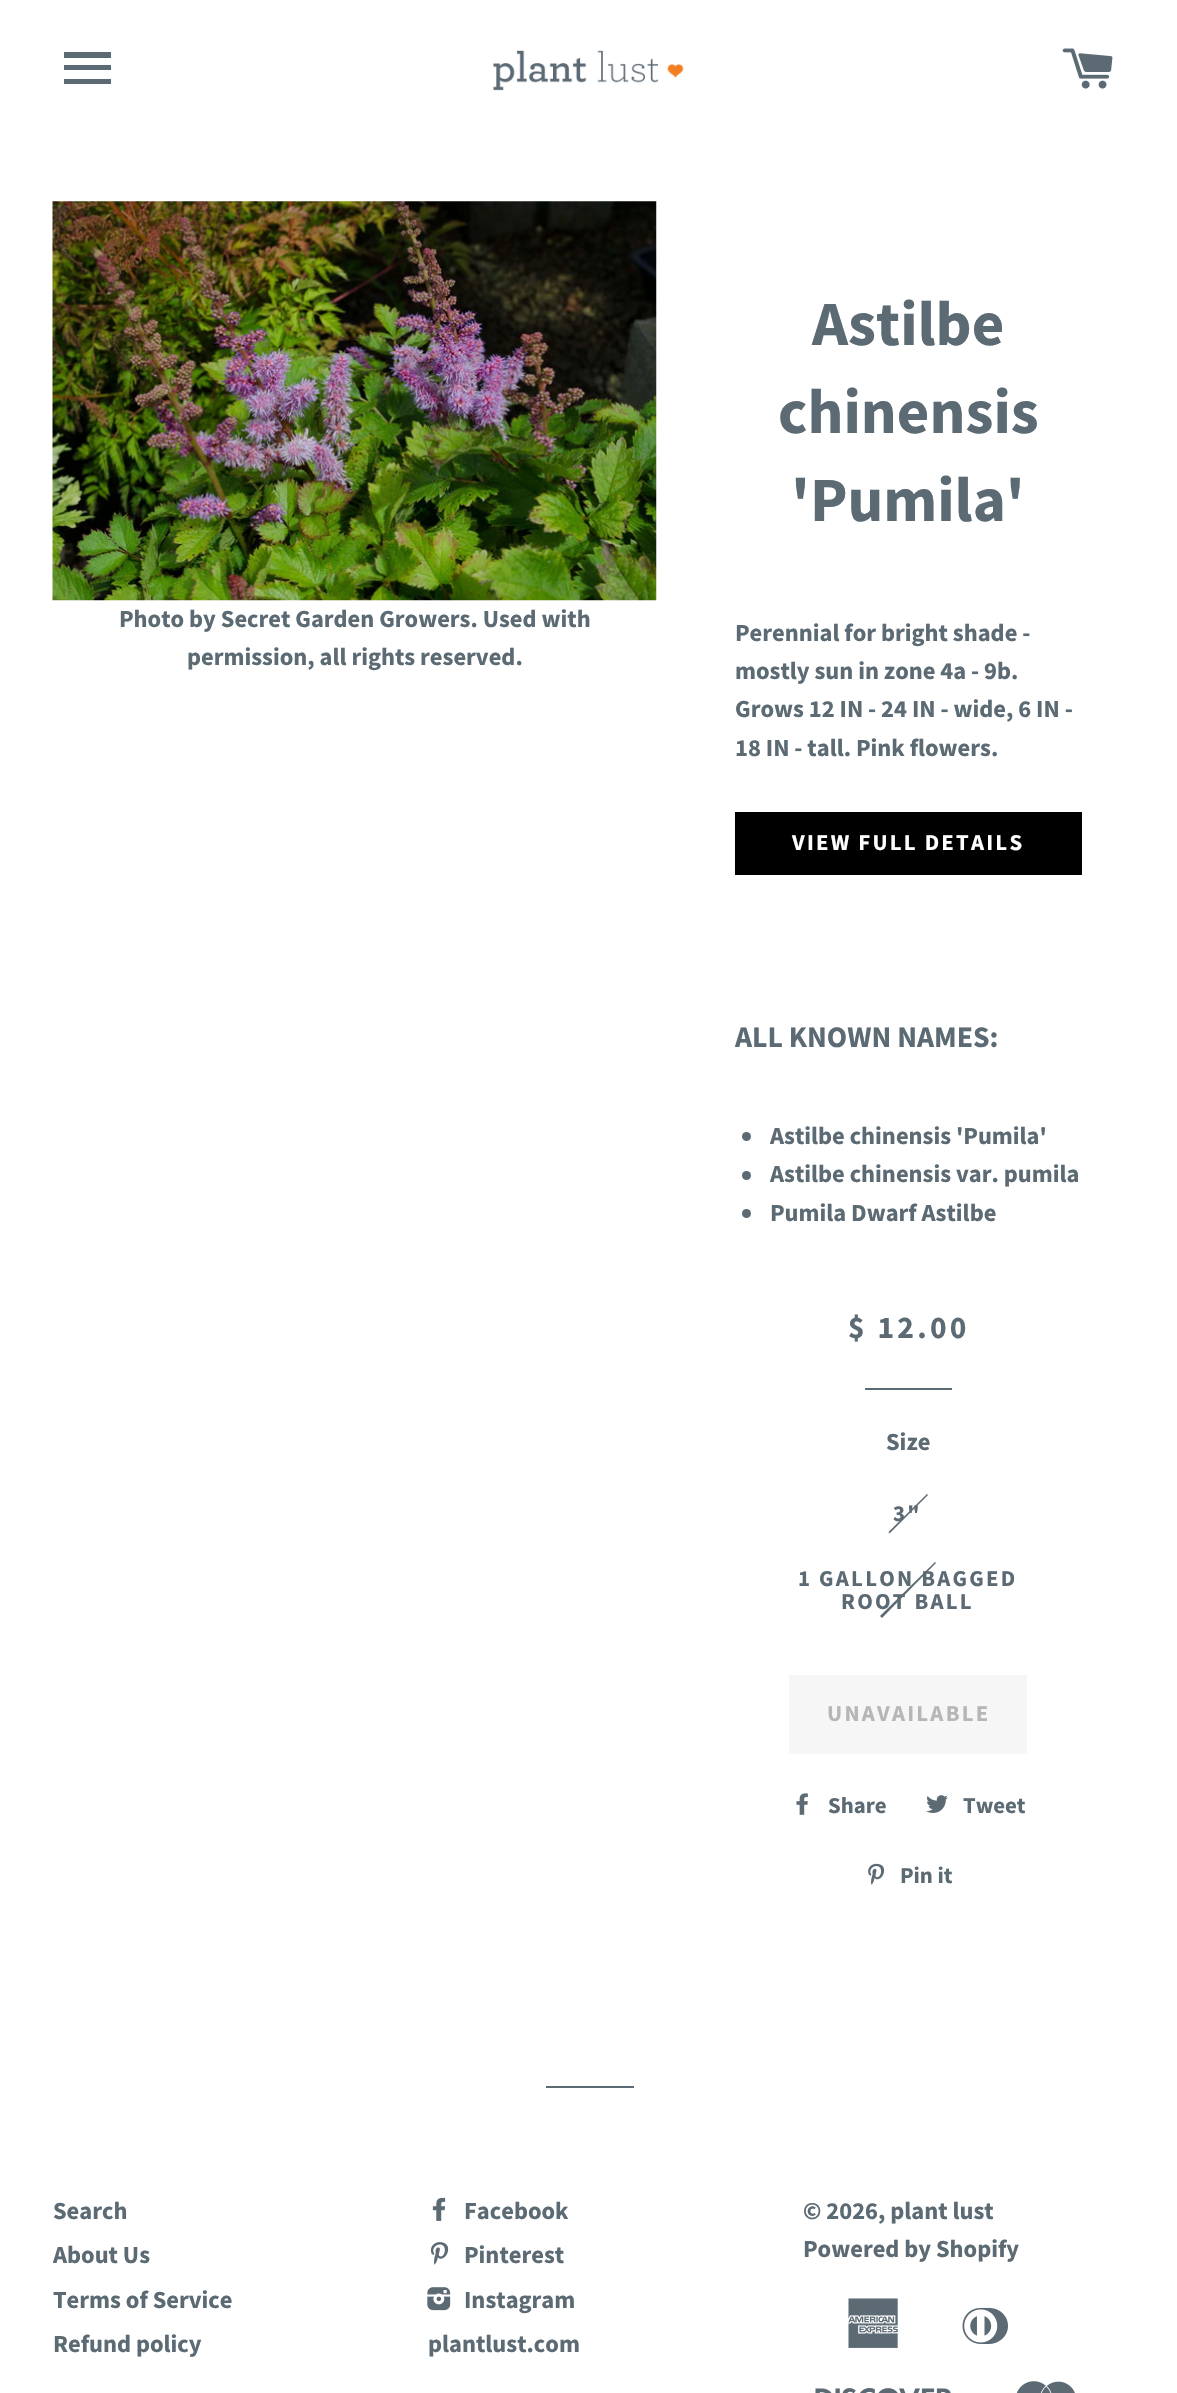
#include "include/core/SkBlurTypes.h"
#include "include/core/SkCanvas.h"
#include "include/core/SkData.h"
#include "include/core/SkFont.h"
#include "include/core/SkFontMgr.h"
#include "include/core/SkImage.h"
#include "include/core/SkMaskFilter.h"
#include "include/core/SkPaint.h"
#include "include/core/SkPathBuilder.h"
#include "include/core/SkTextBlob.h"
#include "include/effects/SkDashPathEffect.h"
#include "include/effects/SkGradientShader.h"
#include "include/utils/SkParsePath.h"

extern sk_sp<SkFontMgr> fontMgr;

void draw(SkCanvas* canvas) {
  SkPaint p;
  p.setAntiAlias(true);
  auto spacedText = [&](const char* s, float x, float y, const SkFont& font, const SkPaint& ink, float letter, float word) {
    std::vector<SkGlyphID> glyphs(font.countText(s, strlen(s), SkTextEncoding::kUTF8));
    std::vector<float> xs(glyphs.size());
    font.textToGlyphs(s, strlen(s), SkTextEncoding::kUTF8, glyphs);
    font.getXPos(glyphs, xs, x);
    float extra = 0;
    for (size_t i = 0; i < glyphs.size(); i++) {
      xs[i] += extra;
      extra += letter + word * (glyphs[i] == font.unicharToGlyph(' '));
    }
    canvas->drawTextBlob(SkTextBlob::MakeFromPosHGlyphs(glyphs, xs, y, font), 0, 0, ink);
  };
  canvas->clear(SK_ColorWHITE);
  p.setColor(SkColorSetRGB(92, 106, 116));
  canvas->drawPath(SkPathBuilder().moveTo(64, 52).lineTo(111, 52).lineTo(111, 58).lineTo(64, 58).close().moveTo(64, 65).lineTo(111, 65).lineTo(111, 70).lineTo(64, 70).close().moveTo(64, 79).lineTo(111, 79).lineTo(111, 84).lineTo(64, 84).close().detach(), p);
  canvas->drawImageRect(SkImages::DeferredFromEncodedData(SkData::MakeFromFileName("images/1.png")), SkRect::MakeLTRB(493, 50, 684, 91), SkSamplingOptions());
  canvas->drawImageRect(SkImages::DeferredFromEncodedData(SkData::MakeFromFileName("images/2.png")), SkRect::MakeLTRB(1062, 48, 1113, 89), SkSamplingOptions());
  canvas->drawImageRect(SkImages::DeferredFromEncodedData(SkData::MakeFromFileName("images/3.png")), SkRect::MakeLTRB(52, 201, 657, 601), SkSamplingOptions());
  p.setColor(SK_ColorBLACK);
  canvas->drawRect(SkRect::MakeLTRB(735, 812, 1082, 875), p);
  p.setColor(SkColorSetRGB(92, 106, 116));
  canvas->drawCircle(746.5f, 1136.5f, 4.5f, p);
  canvas->drawCircle(746.5f, 1175.5f, 4.5f, p);
  canvas->drawCircle(746.5f, 1213.5f, 4.5f, p);
  canvas->drawRect(SkRect::MakeLTRB(865, 1388, 952, 1390), p);
  canvas->drawPath(SkPathBuilder().moveTo(927, 1494).lineTo(928, 1495).lineTo(889.5f, 1533.5f).lineTo(888.5f, 1532).close().detach(), p);
  canvas->drawPath(SkPathBuilder().moveTo(935, 1562).lineTo(936, 1563).lineTo(882, 1618).lineTo(880, 1616).close().detach(), p);
  p.setColor(SkColorSetRGB(246, 246, 246));
  canvas->drawRect(SkRect::MakeLTRB(789, 1675, 1027, 1754), p);
  canvas->drawImageRect(SkImages::DeferredFromEncodedData(SkData::MakeFromFileName("images/4.png")), SkRect::MakeLTRB(796, 1793, 808, 1815), SkSamplingOptions());
  canvas->drawImageRect(SkImages::DeferredFromEncodedData(SkData::MakeFromFileName("images/5.png")), SkRect::MakeLTRB(926, 1795, 948, 1813), SkSamplingOptions());
  canvas->drawImageRect(SkImages::DeferredFromEncodedData(SkData::MakeFromFileName("images/6.png")), SkRect::MakeLTRB(868, 1863, 885, 1885), SkSamplingOptions());
  p.setColor(SkColorSetRGB(92, 106, 116));
  canvas->drawRect(SkRect::MakeLTRB(546, 2086, 634, 2088), p);
  canvas->drawImageRect(SkImages::DeferredFromEncodedData(SkData::MakeFromFileName("images/7.png")), SkRect::MakeLTRB(432, 2197, 446, 2221), SkSamplingOptions());
  canvas->drawImageRect(SkImages::DeferredFromEncodedData(SkData::MakeFromFileName("images/8.png")), SkRect::MakeLTRB(430, 2242, 449, 2265), SkSamplingOptions());
  canvas->drawImageRect(SkImages::DeferredFromEncodedData(SkData::MakeFromFileName("images/9.png")), SkRect::MakeLTRB(427, 2287, 451, 2311), SkSamplingOptions());
  canvas->drawImageRect(SkImages::DeferredFromEncodedData(SkData::MakeFromFileName("images/10.png")), SkRect::MakeLTRB(848, 2298, 898, 2348), SkSamplingOptions());
  canvas->drawImageRect(SkImages::DeferredFromEncodedData(SkData::MakeFromFileName("images/11.png")), SkRect::MakeLTRB(962, 2307, 1008, 2344), SkSamplingOptions());
  canvas->drawImageRect(SkImages::DeferredFromEncodedData(SkData::MakeFromFileName("images/12.png")), SkRect::MakeLTRB(815, 2388, 951, 2393), SkSamplingOptions());
  canvas->drawImageRect(SkImages::DeferredFromEncodedData(SkData::MakeFromFileName("images/13.png")), SkRect::MakeLTRB(1016, 2381, 1075, 2393), SkSamplingOptions());
  SkFont font1(fontMgr->matchFamilyStyle("Source Sans Pro", SkFontStyle::Bold()), 24.5f);
  font1.setSubpixel(true);
  canvas->drawString("Photo by Secret Garden Growers. Used with", 119, 627, font1, p);
  canvas->drawString("permission, all rights reserved.", 187, 665, font1, p);
  SkFont font2(fontMgr->matchFamilyStyle("Source Sans Pro", SkFontStyle::Bold()), 63);
  font2.setSubpixel(true);
  canvas->drawString("Astilbe", 812, 345, font2, p);
  canvas->drawString("chinensis", 778, 433, font2, p);
  canvas->drawString("'Pumila'", 791, 521, font2, p);
  canvas->drawString("Perennial for bright shade -", 735, 641, font1, p);
  canvas->drawString("mostly sun in zone 4a - 9b.", 735, 679, font1, p);
  canvas->drawString("Grows 12 IN - 24 IN - wide, 6 IN -", 735, 717, font1, p);
  canvas->drawString("18 IN - tall. Pink flowers.", 735, 756, font1, p);
  SkFont font3(fontMgr->matchFamilyStyle("Source Sans Pro", SkFontStyle::Bold()), 22.75f);
  font3.setSubpixel(true);
  p.setColor(SK_ColorWHITE);
  spacedText("VIEW FULL DETAILS", 792, 850, font3, p, 2.25f, 0);
  SkFont font4(fontMgr->matchFamilyStyle("Source Sans Pro", SkFontStyle::Bold()), 29.75f);
  font4.setSubpixel(true);
  p.setColor(SkColorSetRGB(92, 106, 116));
  canvas->drawString("ALL KNOWN NAMES:", 735, 1047, font4, p);
  canvas->drawString("Astilbe chinensis 'Pumila'", 770, 1144, font1, p);
  canvas->drawString("Astilbe chinensis var. pumila", 770, 1182, font1, p);
  canvas->drawString("Pumila Dwarf Astilbe", 770, 1221, font1, p);
  SkFont font5(fontMgr->matchFamilyStyle("Source Sans Pro", SkFontStyle::Bold()), 31.5f);
  font5.setSubpixel(true);
  spacedText("$ 12.00", 848, 1338, font5, p, 3.25f, 0);
  canvas->drawString("Size", 886, 1450, font1, p);
  spacedText("3\"", 893, 1521, font3, p, 2.25f, 0);
  spacedText("1 GALLON BAGGED", 798, 1586, font3, p, 2.25f, 0);
  spacedText("ROOT BALL", 841, 1609, font3, p, 2.25f, 0);
  p.setColor(SkColorSetRGB(182, 182, 182));
  spacedText("UNAVAILABLE", 827, 1721, font3, p, 2.25f, 0);
  p.setColor(SkColorSetRGB(92, 106, 116));
  canvas->drawString("Share", 828, 1813, font3, p);
  canvas->drawString("Tweet", 963, 1813, font3, p);
  canvas->drawString("Pin it", 900, 1883, font3, p);
  canvas->drawString("Search", 53, 2219, font1, p);
  canvas->drawString("About Us", 53, 2263, font1, p);
  canvas->drawString("Terms of Service", 53, 2308, font1, p);
  canvas->drawString("Refund policy", 53, 2352, font1, p);
  canvas->drawString("Facebook", 464, 2219, font1, p);
  canvas->drawString("Pinterest", 464, 2263, font1, p);
  canvas->drawString("Instagram", 464, 2308, font1, p);
  canvas->drawString("plantlust.com", 428, 2352, font1, p);
  canvas->drawString("© 2026, plant lust", 803, 2219, font1, p);
  canvas->drawString("Powered by Shopify", 803, 2257, font1, p);
}
